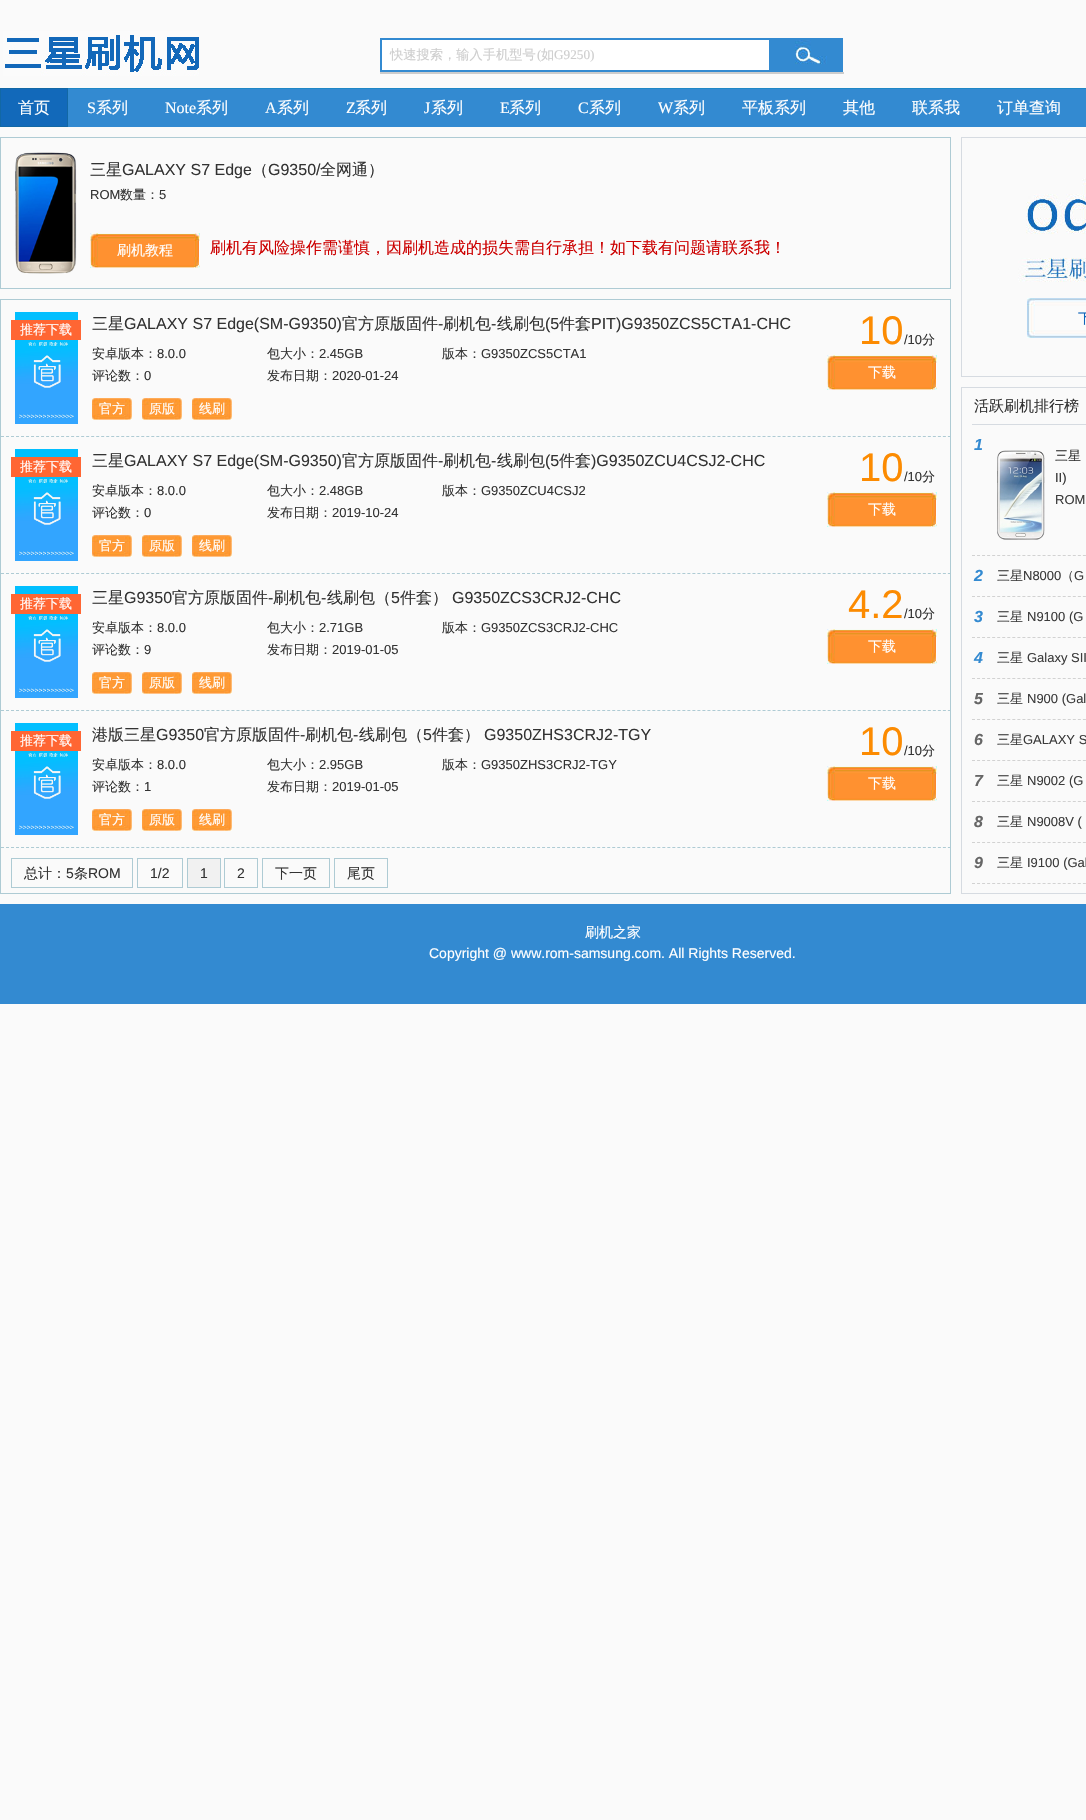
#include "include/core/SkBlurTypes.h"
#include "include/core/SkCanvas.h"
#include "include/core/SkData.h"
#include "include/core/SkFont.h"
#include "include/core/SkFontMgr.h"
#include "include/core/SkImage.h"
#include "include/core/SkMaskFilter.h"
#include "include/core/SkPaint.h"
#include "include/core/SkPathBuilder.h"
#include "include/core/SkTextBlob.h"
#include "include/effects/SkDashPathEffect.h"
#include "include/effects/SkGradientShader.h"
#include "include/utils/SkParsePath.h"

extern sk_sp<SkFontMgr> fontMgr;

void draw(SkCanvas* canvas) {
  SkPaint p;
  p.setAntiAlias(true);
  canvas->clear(SkColorSetRGB(250, 250, 250));
  canvas->drawImageRect(SkImages::DeferredFromEncodedData(SkData::MakeFromFileName("images/1.png")), SkRect::MakeLTRB(3, 31, 199, 76), SkSamplingOptions());
  p.setColor(SK_ColorWHITE);
  canvas->drawRect(SkRect::MakeLTRB(382, 40, 769, 70), p);
  p.setColor(SkColorSetRGB(51, 138, 209));
  canvas->drawRect(SkRect::MakeLTRB(380, 38, 772, 40), p);
  canvas->drawRect(SkRect::MakeLTRB(380, 70, 772, 72), p);
  canvas->drawRect(SkRect::MakeLTRB(380, 38, 382, 72), p);
  p.setStyle(SkPaint::kStroke_Style);
  p.setStrokeWidth(2);
  canvas->drawRect(SkRect::MakeLTRB(770, 39, 842, 71), p);
  canvas->drawImageRect(SkImages::DeferredFromEncodedData(SkData::MakeFromFileName("images/2.png")), SkRect::MakeLTRB(771, 40, 841, 70), SkSamplingOptions());
  p.setStyle(SkPaint::kFill_Style);
  p.setColor(SkColorSetRGB(204, 204, 204));
  canvas->drawRect(SkRect::MakeLTRB(380, 72, 844, 74), p);
  p.setColor(SkColorSetRGB(51, 138, 209));
  canvas->drawRect(SkRect::MakeLTRB(68, 89, 1086, 127), p);
  p.setColor(SkColorSetRGB(30, 135, 198));
  canvas->drawRect(SkRect::MakeLTRB(68, 88, 1086, 89), p);
  p.setColor(SkColorSetRGB(18, 105, 186));
  canvas->drawRect(SkRect::MakeLTRB(0.5f, 88.5f, 67.5f, 126.5f), p);
  p.setStyle(SkPaint::kStroke_Style);
  p.setStrokeWidth(1);
  p.setColor(SkColorSetRGB(18, 104, 165));
  canvas->drawRect(SkRect::MakeLTRB(0.5f, 88.5f, 67.5f, 126.5f), p);
  p.setColor(SkColorSetRGB(174, 203, 212));
  canvas->drawRect(SkRect::MakeLTRB(0.5f, 137.5f, 950.5f, 288.5f), p);
  canvas->drawImageRect(SkImages::DeferredFromEncodedData(SkData::MakeFromFileName("images/3.png")), SkRect::MakeLTRB(15, 152, 77, 274), SkSamplingOptions());
  canvas->drawImageRect(SkImages::DeferredFromEncodedData(SkData::MakeFromFileName("images/4.png")), SkRect::MakeLTRB(90, 233, 200, 268), SkSamplingOptions());
  canvas->drawRect(SkRect::MakeLTRB(0.5f, 299.5f, 950.5f, 893.5f), p);
  p.setPathEffect(SkDashPathEffect::Make({{3, 2.01f}}, 0));
  canvas->drawPath(SkPathBuilder().moveTo(1, 436.5f).lineTo(950, 436.5f).detach(), p);
  p.setPathEffect(nullptr);
  canvas->drawImageRect(SkImages::DeferredFromEncodedData(SkData::MakeFromFileName("images/5.png")), SkRect::MakeLTRB(15, 312, 78, 424), SkSamplingOptions());
  canvas->drawImageRect(SkImages::DeferredFromEncodedData(SkData::MakeFromFileName("images/6.png")), SkRect::MakeLTRB(92, 398, 132, 420), SkSamplingOptions());
  canvas->drawImageRect(SkImages::DeferredFromEncodedData(SkData::MakeFromFileName("images/6.png")), SkRect::MakeLTRB(142, 398, 182, 420), SkSamplingOptions());
  canvas->drawImageRect(SkImages::DeferredFromEncodedData(SkData::MakeFromFileName("images/6.png")), SkRect::MakeLTRB(192, 398, 232, 420), SkSamplingOptions());
  canvas->drawImageRect(SkImages::DeferredFromEncodedData(SkData::MakeFromFileName("images/4.png")), SkRect::MakeLTRB(827, 355, 937, 390), SkSamplingOptions());
  p.setStyle(SkPaint::kFill_Style);
  p.setColor(SkColorSetRGB(255, 102, 51));
  canvas->drawRect(SkRect::MakeLTRB(11, 320, 81, 340), p);
  p.setStyle(SkPaint::kStroke_Style);
  p.setColor(SkColorSetRGB(174, 203, 212));
  p.setPathEffect(SkDashPathEffect::Make({{3, 2.01f}}, 0));
  canvas->drawPath(SkPathBuilder().moveTo(1, 573.5f).lineTo(950, 573.5f).detach(), p);
  p.setPathEffect(nullptr);
  canvas->drawImageRect(SkImages::DeferredFromEncodedData(SkData::MakeFromFileName("images/5.png")), SkRect::MakeLTRB(15, 449, 78, 561), SkSamplingOptions());
  canvas->drawImageRect(SkImages::DeferredFromEncodedData(SkData::MakeFromFileName("images/6.png")), SkRect::MakeLTRB(92, 535, 132, 557), SkSamplingOptions());
  canvas->drawImageRect(SkImages::DeferredFromEncodedData(SkData::MakeFromFileName("images/6.png")), SkRect::MakeLTRB(142, 535, 182, 557), SkSamplingOptions());
  canvas->drawImageRect(SkImages::DeferredFromEncodedData(SkData::MakeFromFileName("images/6.png")), SkRect::MakeLTRB(192, 535, 232, 557), SkSamplingOptions());
  canvas->drawImageRect(SkImages::DeferredFromEncodedData(SkData::MakeFromFileName("images/4.png")), SkRect::MakeLTRB(827, 492, 937, 527), SkSamplingOptions());
  p.setStyle(SkPaint::kFill_Style);
  p.setColor(SkColorSetRGB(255, 102, 51));
  canvas->drawRect(SkRect::MakeLTRB(11, 457, 81, 477), p);
  p.setStyle(SkPaint::kStroke_Style);
  p.setColor(SkColorSetRGB(174, 203, 212));
  p.setPathEffect(SkDashPathEffect::Make({{3, 2.01f}}, 0));
  canvas->drawPath(SkPathBuilder().moveTo(1, 710.5f).lineTo(950, 710.5f).detach(), p);
  p.setPathEffect(nullptr);
  canvas->drawImageRect(SkImages::DeferredFromEncodedData(SkData::MakeFromFileName("images/5.png")), SkRect::MakeLTRB(15, 586, 78, 698), SkSamplingOptions());
  canvas->drawImageRect(SkImages::DeferredFromEncodedData(SkData::MakeFromFileName("images/6.png")), SkRect::MakeLTRB(92, 672, 132, 694), SkSamplingOptions());
  canvas->drawImageRect(SkImages::DeferredFromEncodedData(SkData::MakeFromFileName("images/6.png")), SkRect::MakeLTRB(142, 672, 182, 694), SkSamplingOptions());
  canvas->drawImageRect(SkImages::DeferredFromEncodedData(SkData::MakeFromFileName("images/6.png")), SkRect::MakeLTRB(192, 672, 232, 694), SkSamplingOptions());
  canvas->drawImageRect(SkImages::DeferredFromEncodedData(SkData::MakeFromFileName("images/4.png")), SkRect::MakeLTRB(827, 629, 937, 664), SkSamplingOptions());
  p.setStyle(SkPaint::kFill_Style);
  p.setColor(SkColorSetRGB(255, 102, 51));
  canvas->drawRect(SkRect::MakeLTRB(11, 594, 81, 614), p);
  p.setStyle(SkPaint::kStroke_Style);
  p.setColor(SkColorSetRGB(174, 203, 212));
  p.setPathEffect(SkDashPathEffect::Make({{3, 2.01f}}, 0));
  canvas->drawPath(SkPathBuilder().moveTo(1, 847.5f).lineTo(950, 847.5f).detach(), p);
  p.setPathEffect(nullptr);
  canvas->drawImageRect(SkImages::DeferredFromEncodedData(SkData::MakeFromFileName("images/7.png")), SkRect::MakeLTRB(15, 723, 78, 835), SkSamplingOptions());
  canvas->drawImageRect(SkImages::DeferredFromEncodedData(SkData::MakeFromFileName("images/6.png")), SkRect::MakeLTRB(92, 809, 132, 831), SkSamplingOptions());
  canvas->drawImageRect(SkImages::DeferredFromEncodedData(SkData::MakeFromFileName("images/6.png")), SkRect::MakeLTRB(142, 809, 182, 831), SkSamplingOptions());
  canvas->drawImageRect(SkImages::DeferredFromEncodedData(SkData::MakeFromFileName("images/6.png")), SkRect::MakeLTRB(192, 809, 232, 831), SkSamplingOptions());
  canvas->drawImageRect(SkImages::DeferredFromEncodedData(SkData::MakeFromFileName("images/4.png")), SkRect::MakeLTRB(827, 766, 937, 801), SkSamplingOptions());
  p.setStyle(SkPaint::kFill_Style);
  p.setColor(SkColorSetRGB(255, 102, 51));
  canvas->drawRect(SkRect::MakeLTRB(11, 731, 81, 751), p);
  p.setStyle(SkPaint::kStroke_Style);
  p.setColor(SkColorSetRGB(174, 203, 212));
  canvas->drawRect(SkRect::MakeLTRB(11.5f, 858.5f, 132.5f, 887.5f), p);
  canvas->drawRect(SkRect::MakeLTRB(137.5f, 858.5f, 182.5f, 887.5f), p);
  p.setStyle(SkPaint::kFill_Style);
  p.setColor(SkColorSetRGB(241, 241, 241));
  canvas->drawRect(SkRect::MakeLTRB(187.5f, 858.5f, 220.5f, 887.5f), p);
  p.setStyle(SkPaint::kStroke_Style);
  p.setColor(SkColorSetRGB(174, 203, 212));
  canvas->drawRect(SkRect::MakeLTRB(187.5f, 858.5f, 220.5f, 887.5f), p);
  canvas->drawRect(SkRect::MakeLTRB(224.5f, 858.5f, 257.5f, 887.5f), p);
  canvas->drawRect(SkRect::MakeLTRB(262.5f, 858.5f, 329.5f, 887.5f), p);
  canvas->drawRect(SkRect::MakeLTRB(334.5f, 858.5f, 387.5f, 887.5f), p);
  canvas->drawImageRect(SkImages::DeferredFromEncodedData(SkData::MakeFromFileName("images/8.png")), SkRect::MakeLTRB(1018, 178, 1086, 282), SkSamplingOptions());
  p.setColor(SkColorSetRGB(214, 219, 225));
  canvas->drawRect(SkRect::MakeLTRB(961.5f, 137.5f, 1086.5f, 376.5f), p);
  canvas->drawImageRect(SkImages::DeferredFromEncodedData(SkData::MakeFromFileName("images/9.png")), SkRect::MakeLTRB(1027, 298, 1086, 338), SkSamplingOptions());
  canvas->drawRect(SkRect::MakeLTRB(961.5f, 387.5f, 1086.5f, 893.5f), p);
  p.setStyle(SkPaint::kFill_Style);
  canvas->drawRect(SkRect::MakeLTRB(972, 424, 1086, 425), p);
  p.setStyle(SkPaint::kStroke_Style);
  p.setColor(SkColorSetRGB(210, 210, 210));
  p.setPathEffect(SkDashPathEffect::Make({{3, 2.04f}}, 0));
  canvas->drawPath(SkPathBuilder().moveTo(972, 555.5f).lineTo(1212, 555.5f).detach(), p);
  p.setPathEffect(nullptr);
  canvas->drawImageRect(SkImages::DeferredFromEncodedData(SkData::MakeFromFileName("images/10.png")), SkRect::MakeLTRB(997, 450, 1045, 540), SkSamplingOptions());
  p.setPathEffect(SkDashPathEffect::Make({{3, 2.04f}}, 0));
  canvas->drawPath(SkPathBuilder().moveTo(972, 596.5f).lineTo(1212, 596.5f).detach(), p);
  p.setPathEffect(nullptr);
  p.setPathEffect(SkDashPathEffect::Make({{3, 2.04f}}, 0));
  canvas->drawPath(SkPathBuilder().moveTo(972, 637.5f).lineTo(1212, 637.5f).detach(), p);
  p.setPathEffect(nullptr);
  p.setPathEffect(SkDashPathEffect::Make({{3, 2.04f}}, 0));
  canvas->drawPath(SkPathBuilder().moveTo(972, 678.5f).lineTo(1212, 678.5f).detach(), p);
  p.setPathEffect(nullptr);
  p.setPathEffect(SkDashPathEffect::Make({{3, 2.04f}}, 0));
  canvas->drawPath(SkPathBuilder().moveTo(972, 719.5f).lineTo(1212, 719.5f).detach(), p);
  p.setPathEffect(nullptr);
  p.setPathEffect(SkDashPathEffect::Make({{3, 2.04f}}, 0));
  canvas->drawPath(SkPathBuilder().moveTo(972, 760.5f).lineTo(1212, 760.5f).detach(), p);
  p.setPathEffect(nullptr);
  p.setPathEffect(SkDashPathEffect::Make({{3, 2.04f}}, 0));
  canvas->drawPath(SkPathBuilder().moveTo(972, 801.5f).lineTo(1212, 801.5f).detach(), p);
  p.setPathEffect(nullptr);
  p.setPathEffect(SkDashPathEffect::Make({{3, 2.04f}}, 0));
  canvas->drawPath(SkPathBuilder().moveTo(972, 842.5f).lineTo(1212, 842.5f).detach(), p);
  p.setPathEffect(nullptr);
  p.setPathEffect(SkDashPathEffect::Make({{3, 2.04f}}, 0));
  canvas->drawPath(SkPathBuilder().moveTo(972, 883.5f).lineTo(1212, 883.5f).detach(), p);
  p.setPathEffect(nullptr);
  p.setStyle(SkPaint::kFill_Style);
  p.setColor(SkColorSetRGB(51, 138, 209));
  canvas->drawRect(SkRect::MakeLTRB(0, 904, 1086, 1004), p);
  SkFont font1(fontMgr->matchFamilyStyle("WenQuanYi Zen Hei", SkFontStyle(500, SkFontStyle::kNormal_Width, SkFontStyle::kUpright_Slant)), 13.25f);
  font1.setSubpixel(true);
  p.setColor(SkColorSetRGB(206, 206, 206));
  canvas->drawString("快速搜索，输入手机型号", 390, 59, font1, p);
  SkFont font2(fontMgr->matchFamilyStyle("Liberation Serif", SkFontStyle::Normal()), 13.25f);
  font2.setSubpixel(true);
  canvas->drawString("(", 537, 59, font2, p);
  canvas->drawString("如", 541, 59, font1, p);
  canvas->drawString("G9250)", 554, 59, font2, p);
  SkFont font3(fontMgr->matchFamilyStyle("WenQuanYi Zen Hei", SkFontStyle(500, SkFontStyle::kNormal_Width, SkFontStyle::kUpright_Slant)), 16);
  font3.setSubpixel(true);
  p.setColor(SK_ColorWHITE);
  canvas->drawString("首页", 18, 113, font3, p);
  SkFont font4(fontMgr->matchFamilyStyle("Liberation Serif", SkFontStyle::Normal()), 16);
  font4.setSubpixel(true);
  canvas->drawString("S", 87, 113, font4, p);
  canvas->drawString("系列", 96, 113, font3, p);
  canvas->drawString("Note", 165, 113, font4, p);
  canvas->drawString("系列", 196, 113, font3, p);
  canvas->drawString("A", 265, 113, font4, p);
  canvas->drawString("系列", 277, 113, font3, p);
  canvas->drawString("Z", 346, 113, font4, p);
  canvas->drawString("系列", 355, 113, font3, p);
  canvas->drawString("J", 424, 113, font4, p);
  canvas->drawString("系列", 431, 113, font3, p);
  canvas->drawString("E", 500, 113, font4, p);
  canvas->drawString("系列", 509, 113, font3, p);
  canvas->drawString("C", 578, 113, font4, p);
  canvas->drawString("系列", 589, 113, font3, p);
  canvas->drawString("W", 658, 113, font4, p);
  canvas->drawString("系列", 673, 113, font3, p);
  canvas->drawString("平板系列", 742, 113, font3, p);
  canvas->drawString("其他", 843, 113, font3, p);
  canvas->drawString("联系我", 912, 113, font3, p);
  canvas->drawString("订单查询", 997, 113, font3, p);
  p.setColor(SkColorSetRGB(51, 51, 51));
  canvas->drawString("三星", 90, 175, font3, p);
  SkFont font5(fontMgr->matchFamilyStyle("Liberation Sans", SkFontStyle::Normal()), 16);
  font5.setSubpixel(true);
  canvas->drawString("GALAXY S7 Edge", 122, 175, font5, p);
  canvas->drawString("（", 252, 175, font3, p);
  canvas->drawString("G9350/", 268, 175, font5, p);
  canvas->drawString("全网通）", 320, 175, font3, p);
  SkFont font6(fontMgr->matchFamilyStyle("Liberation Sans", SkFontStyle::Normal()), 13);
  font6.setSubpixel(true);
  canvas->drawString("ROM", 90, 199, font6, p);
  SkFont font7(fontMgr->matchFamilyStyle("WenQuanYi Zen Hei", SkFontStyle(500, SkFontStyle::kNormal_Width, SkFontStyle::kUpright_Slant)), 13);
  font7.setSubpixel(true);
  canvas->drawString("数量：", 120, 199, font7, p);
  canvas->drawString("5", 159, 199, font6, p);
  SkFont font8(fontMgr->matchFamilyStyle("WenQuanYi Zen Hei", SkFontStyle(500, SkFontStyle::kNormal_Width, SkFontStyle::kUpright_Slant)), 14);
  font8.setSubpixel(true);
  p.setColor(SK_ColorWHITE);
  canvas->drawString("刷机教程", 117, 255, font8, p);
  p.setColor(SkColorSetRGB(204, 0, 0));
  canvas->drawString("刷机有风险操作需谨慎，因刷机造成的损失需自行承担！如下载有问题请联系我！", 210, 253, font3, p);
  p.setColor(SkColorSetRGB(51, 51, 51));
  canvas->drawString("三星", 92, 329, font3, p);
  canvas->drawString("GALAXY S7 Edge(SM-G9350)", 124, 329, font5, p);
  canvas->drawString("官方原版固件", 342, 329, font3, p);
  canvas->drawString("-", 438, 329, font5, p);
  canvas->drawString("刷机包", 443, 329, font3, p);
  canvas->drawString("-", 491, 329, font5, p);
  canvas->drawString("线刷包", 497, 329, font3, p);
  canvas->drawString("(5", 545, 329, font5, p);
  canvas->drawString("件套", 559, 329, font3, p);
  canvas->drawString("PIT)G9350ZCS5CTA1-CHC", 591, 329, font5, p);
  canvas->drawString("安卓版本：", 92, 358, font7, p);
  canvas->drawString("8.0.0", 157, 358, font6, p);
  canvas->drawString("包大小：", 267, 358, font7, p);
  canvas->drawString("2.45GB", 319, 358, font6, p);
  canvas->drawString("版本：", 442, 358, font7, p);
  canvas->drawString("G9350ZCS5CTA1", 481, 358, font6, p);
  canvas->drawString("评论数：", 92, 380, font7, p);
  canvas->drawString("0", 144, 380, font6, p);
  canvas->drawString("发布日期：", 267, 380, font7, p);
  canvas->drawString("2020-01-24", 332, 380, font6, p);
  p.setColor(SK_ColorWHITE);
  canvas->drawString("官方", 99, 413, font7, p);
  canvas->drawString("原版", 149, 413, font7, p);
  canvas->drawString("线刷", 199, 413, font7, p);
  SkFont font9(fontMgr->matchFamilyStyle("Liberation Sans", SkFontStyle::Normal()), 40);
  font9.setSubpixel(true);
  p.setColor(SkColorSetRGB(252, 139, 1));
  canvas->drawString("10", 859, 344, font9, p);
  p.setColor(SkColorSetRGB(51, 51, 51));
  canvas->drawString("/10", 904, 344, font6, p);
  canvas->drawString("分", 922, 344, font7, p);
  p.setColor(SK_ColorWHITE);
  canvas->drawString("下载", 868, 377, font8, p);
  canvas->drawString("推荐下载", 20, 334, font7, p);
  p.setColor(SkColorSetRGB(51, 51, 51));
  canvas->drawString("三星", 92, 466, font3, p);
  canvas->drawString("GALAXY S7 Edge(SM-G9350)", 124, 466, font5, p);
  canvas->drawString("官方原版固件", 342, 466, font3, p);
  canvas->drawString("-", 438, 466, font5, p);
  canvas->drawString("刷机包", 443, 466, font3, p);
  canvas->drawString("-", 491, 466, font5, p);
  canvas->drawString("线刷包", 497, 466, font3, p);
  canvas->drawString("(5", 545, 466, font5, p);
  canvas->drawString("件套", 559, 466, font3, p);
  canvas->drawString(")G9350ZCU4CSJ2-CHC", 591, 466, font5, p);
  canvas->drawString("安卓版本：", 92, 495, font7, p);
  canvas->drawString("8.0.0", 157, 495, font6, p);
  canvas->drawString("包大小：", 267, 495, font7, p);
  canvas->drawString("2.48GB", 319, 495, font6, p);
  canvas->drawString("版本：", 442, 495, font7, p);
  canvas->drawString("G9350ZCU4CSJ2", 481, 495, font6, p);
  canvas->drawString("评论数：", 92, 517, font7, p);
  canvas->drawString("0", 144, 517, font6, p);
  canvas->drawString("发布日期：", 267, 517, font7, p);
  canvas->drawString("2019-10-24", 332, 517, font6, p);
  p.setColor(SK_ColorWHITE);
  canvas->drawString("官方", 99, 550, font7, p);
  canvas->drawString("原版", 149, 550, font7, p);
  canvas->drawString("线刷", 199, 550, font7, p);
  p.setColor(SkColorSetRGB(252, 139, 1));
  canvas->drawString("10", 859, 481, font9, p);
  p.setColor(SkColorSetRGB(51, 51, 51));
  canvas->drawString("/10", 904, 481, font6, p);
  canvas->drawString("分", 922, 481, font7, p);
  p.setColor(SK_ColorWHITE);
  canvas->drawString("下载", 868, 514, font8, p);
  canvas->drawString("推荐下载", 20, 471, font7, p);
  p.setColor(SkColorSetRGB(51, 51, 51));
  canvas->drawString("三星", 92, 603, font3, p);
  canvas->drawString("G9350", 124, 603, font5, p);
  canvas->drawString("官方原版固件", 172, 603, font3, p);
  canvas->drawString("-", 268, 603, font5, p);
  canvas->drawString("刷机包", 273, 603, font3, p);
  canvas->drawString("-", 321, 603, font5, p);
  canvas->drawString("线刷包（", 327, 603, font3, p);
  canvas->drawString("5", 391, 603, font5, p);
  canvas->drawString("件套）", 400, 603, font3, p);
  canvas->drawString("G9350ZCS3CRJ2-CHC", 452, 603, font5, p);
  canvas->drawString("安卓版本：", 92, 632, font7, p);
  canvas->drawString("8.0.0", 157, 632, font6, p);
  canvas->drawString("包大小：", 267, 632, font7, p);
  canvas->drawString("2.71GB", 319, 632, font6, p);
  canvas->drawString("版本：", 442, 632, font7, p);
  canvas->drawString("G9350ZCS3CRJ2-CHC", 481, 632, font6, p);
  canvas->drawString("评论数：", 92, 654, font7, p);
  canvas->drawString("9", 144, 654, font6, p);
  canvas->drawString("发布日期：", 267, 654, font7, p);
  canvas->drawString("2019-01-05", 332, 654, font6, p);
  p.setColor(SK_ColorWHITE);
  canvas->drawString("官方", 99, 687, font7, p);
  canvas->drawString("原版", 149, 687, font7, p);
  canvas->drawString("线刷", 199, 687, font7, p);
  p.setColor(SkColorSetRGB(252, 139, 1));
  canvas->drawString("4.2", 848, 618, font9, p);
  p.setColor(SkColorSetRGB(51, 51, 51));
  canvas->drawString("/10", 904, 618, font6, p);
  canvas->drawString("分", 922, 618, font7, p);
  p.setColor(SK_ColorWHITE);
  canvas->drawString("下载", 868, 651, font8, p);
  canvas->drawString("推荐下载", 20, 608, font7, p);
  p.setColor(SkColorSetRGB(51, 51, 51));
  canvas->drawString("港版三星", 92, 740, font3, p);
  canvas->drawString("G9350", 156, 740, font5, p);
  canvas->drawString("官方原版固件", 204, 740, font3, p);
  canvas->drawString("-", 300, 740, font5, p);
  canvas->drawString("刷机包", 305, 740, font3, p);
  canvas->drawString("-", 353, 740, font5, p);
  canvas->drawString("线刷包（", 359, 740, font3, p);
  canvas->drawString("5", 423, 740, font5, p);
  canvas->drawString("件套）", 432, 740, font3, p);
  canvas->drawString("G9350ZHS3CRJ2-TGY", 484, 740, font5, p);
  canvas->drawString("安卓版本：", 92, 769, font7, p);
  canvas->drawString("8.0.0", 157, 769, font6, p);
  canvas->drawString("包大小：", 267, 769, font7, p);
  canvas->drawString("2.95GB", 319, 769, font6, p);
  canvas->drawString("版本：", 442, 769, font7, p);
  canvas->drawString("G9350ZHS3CRJ2-TGY", 481, 769, font6, p);
  canvas->drawString("评论数：", 92, 791, font7, p);
  canvas->drawString("1", 144, 791, font6, p);
  canvas->drawString("发布日期：", 267, 791, font7, p);
  canvas->drawString("2019-01-05", 332, 791, font6, p);
  p.setColor(SK_ColorWHITE);
  canvas->drawString("官方", 99, 824, font7, p);
  canvas->drawString("原版", 149, 824, font7, p);
  canvas->drawString("线刷", 199, 824, font7, p);
  p.setColor(SkColorSetRGB(252, 139, 1));
  canvas->drawString("10", 859, 755, font9, p);
  p.setColor(SkColorSetRGB(51, 51, 51));
  canvas->drawString("/10", 904, 755, font6, p);
  canvas->drawString("分", 922, 755, font7, p);
  p.setColor(SK_ColorWHITE);
  canvas->drawString("下载", 868, 788, font8, p);
  canvas->drawString("推荐下载", 20, 745, font7, p);
  p.setColor(SkColorSetRGB(51, 51, 51));
  canvas->drawString("总计：", 24, 878, font8, p);
  SkFont font10(fontMgr->matchFamilyStyle("Liberation Sans", SkFontStyle::Normal()), 14);
  font10.setSubpixel(true);
  canvas->drawString("5", 66, 878, font10, p);
  canvas->drawString("条", 74, 878, font8, p);
  canvas->drawString("ROM", 88, 878, font10, p);
  canvas->drawString("1/2", 150, 878, font10, p);
  canvas->drawString("1", 200, 878, font10, p);
  canvas->drawString("2", 237, 878, font10, p);
  canvas->drawString("下一页", 275, 878, font8, p);
  canvas->drawString("尾页", 347, 878, font8, p);
  p.setColor(SkColorSetRGB(14, 100, 185));
  canvas->drawString("下", 1078, 323, font8, p);
  SkFont font11(fontMgr->matchFamilyStyle("WenQuanYi Zen Hei", SkFontStyle(500, SkFontStyle::kNormal_Width, SkFontStyle::kUpright_Slant)), 15);
  font11.setSubpixel(true);
  p.setColor(SkColorSetRGB(51, 51, 51));
  canvas->drawString("活跃刷机排行榜", 974, 411, font11, p);
  SkFont font12(fontMgr->matchFamilyStyle("Liberation Sans", SkFontStyle::BoldItalic()), 16);
  font12.setSubpixel(true);
  p.setColor(SkColorSetRGB(51, 138, 209));
  canvas->drawString("1", 974, 450, font12, p);
  p.setColor(SkColorSetRGB(51, 51, 51));
  canvas->drawString("三星", 1055, 460, font7, p);
  canvas->drawString("II)", 1055, 482, font6, p);
  p.setColor(SkColorSetRGB(60, 60, 60));
  canvas->drawString("ROM", 1055, 504, font6, p);
  p.setColor(SkColorSetRGB(51, 138, 209));
  canvas->drawString("2", 974, 581, font12, p);
  p.setColor(SkColorSetRGB(60, 60, 60));
  canvas->drawString("三星", 997, 580, font7, p);
  canvas->drawString("N8000", 1023, 580, font6, p);
  canvas->drawString("（", 1061, 580, font7, p);
  canvas->drawString("G", 1074, 580, font6, p);
  p.setColor(SkColorSetRGB(51, 138, 209));
  canvas->drawString("3", 974, 622, font12, p);
  p.setColor(SkColorSetRGB(60, 60, 60));
  canvas->drawString("三星", 997, 621, font7, p);
  canvas->drawString("N9100 (G", 1027, 621, font6, p);
  p.setColor(SkColorSetRGB(51, 138, 209));
  canvas->drawString("4", 974, 663, font12, p);
  p.setColor(SkColorSetRGB(60, 60, 60));
  canvas->drawString("三星", 997, 662, font7, p);
  canvas->drawString("Galaxy SII", 1027, 662, font6, p);
  p.setColor(SkColorSetRGB(102, 102, 102));
  canvas->drawString("5", 974, 704, font12, p);
  p.setColor(SkColorSetRGB(60, 60, 60));
  canvas->drawString("三星", 997, 703, font7, p);
  canvas->drawString("N900 (Gal", 1027, 703, font6, p);
  p.setColor(SkColorSetRGB(102, 102, 102));
  canvas->drawString("6", 974, 745, font12, p);
  p.setColor(SkColorSetRGB(60, 60, 60));
  canvas->drawString("三星", 997, 744, font7, p);
  canvas->drawString("GALAXY S", 1023, 744, font6, p);
  p.setColor(SkColorSetRGB(102, 102, 102));
  canvas->drawString("7", 974, 786, font12, p);
  p.setColor(SkColorSetRGB(60, 60, 60));
  canvas->drawString("三星", 997, 785, font7, p);
  canvas->drawString("N9002 (G", 1027, 785, font6, p);
  p.setColor(SkColorSetRGB(102, 102, 102));
  canvas->drawString("8", 974, 827, font12, p);
  p.setColor(SkColorSetRGB(60, 60, 60));
  canvas->drawString("三星", 997, 826, font7, p);
  canvas->drawString("N9008V (", 1027, 826, font6, p);
  p.setColor(SkColorSetRGB(102, 102, 102));
  canvas->drawString("9", 974, 868, font12, p);
  p.setColor(SkColorSetRGB(60, 60, 60));
  canvas->drawString("三星", 997, 867, font7, p);
  canvas->drawString("I9100 (Gal", 1027, 867, font6, p);
  p.setColor(SK_ColorWHITE);
  canvas->drawString("刷机之家", 585, 937, font8, p);
  canvas->drawString("Copyright @ www.rom-samsung.com. All Rights Reserved.", 429, 958, font10, p);
}
